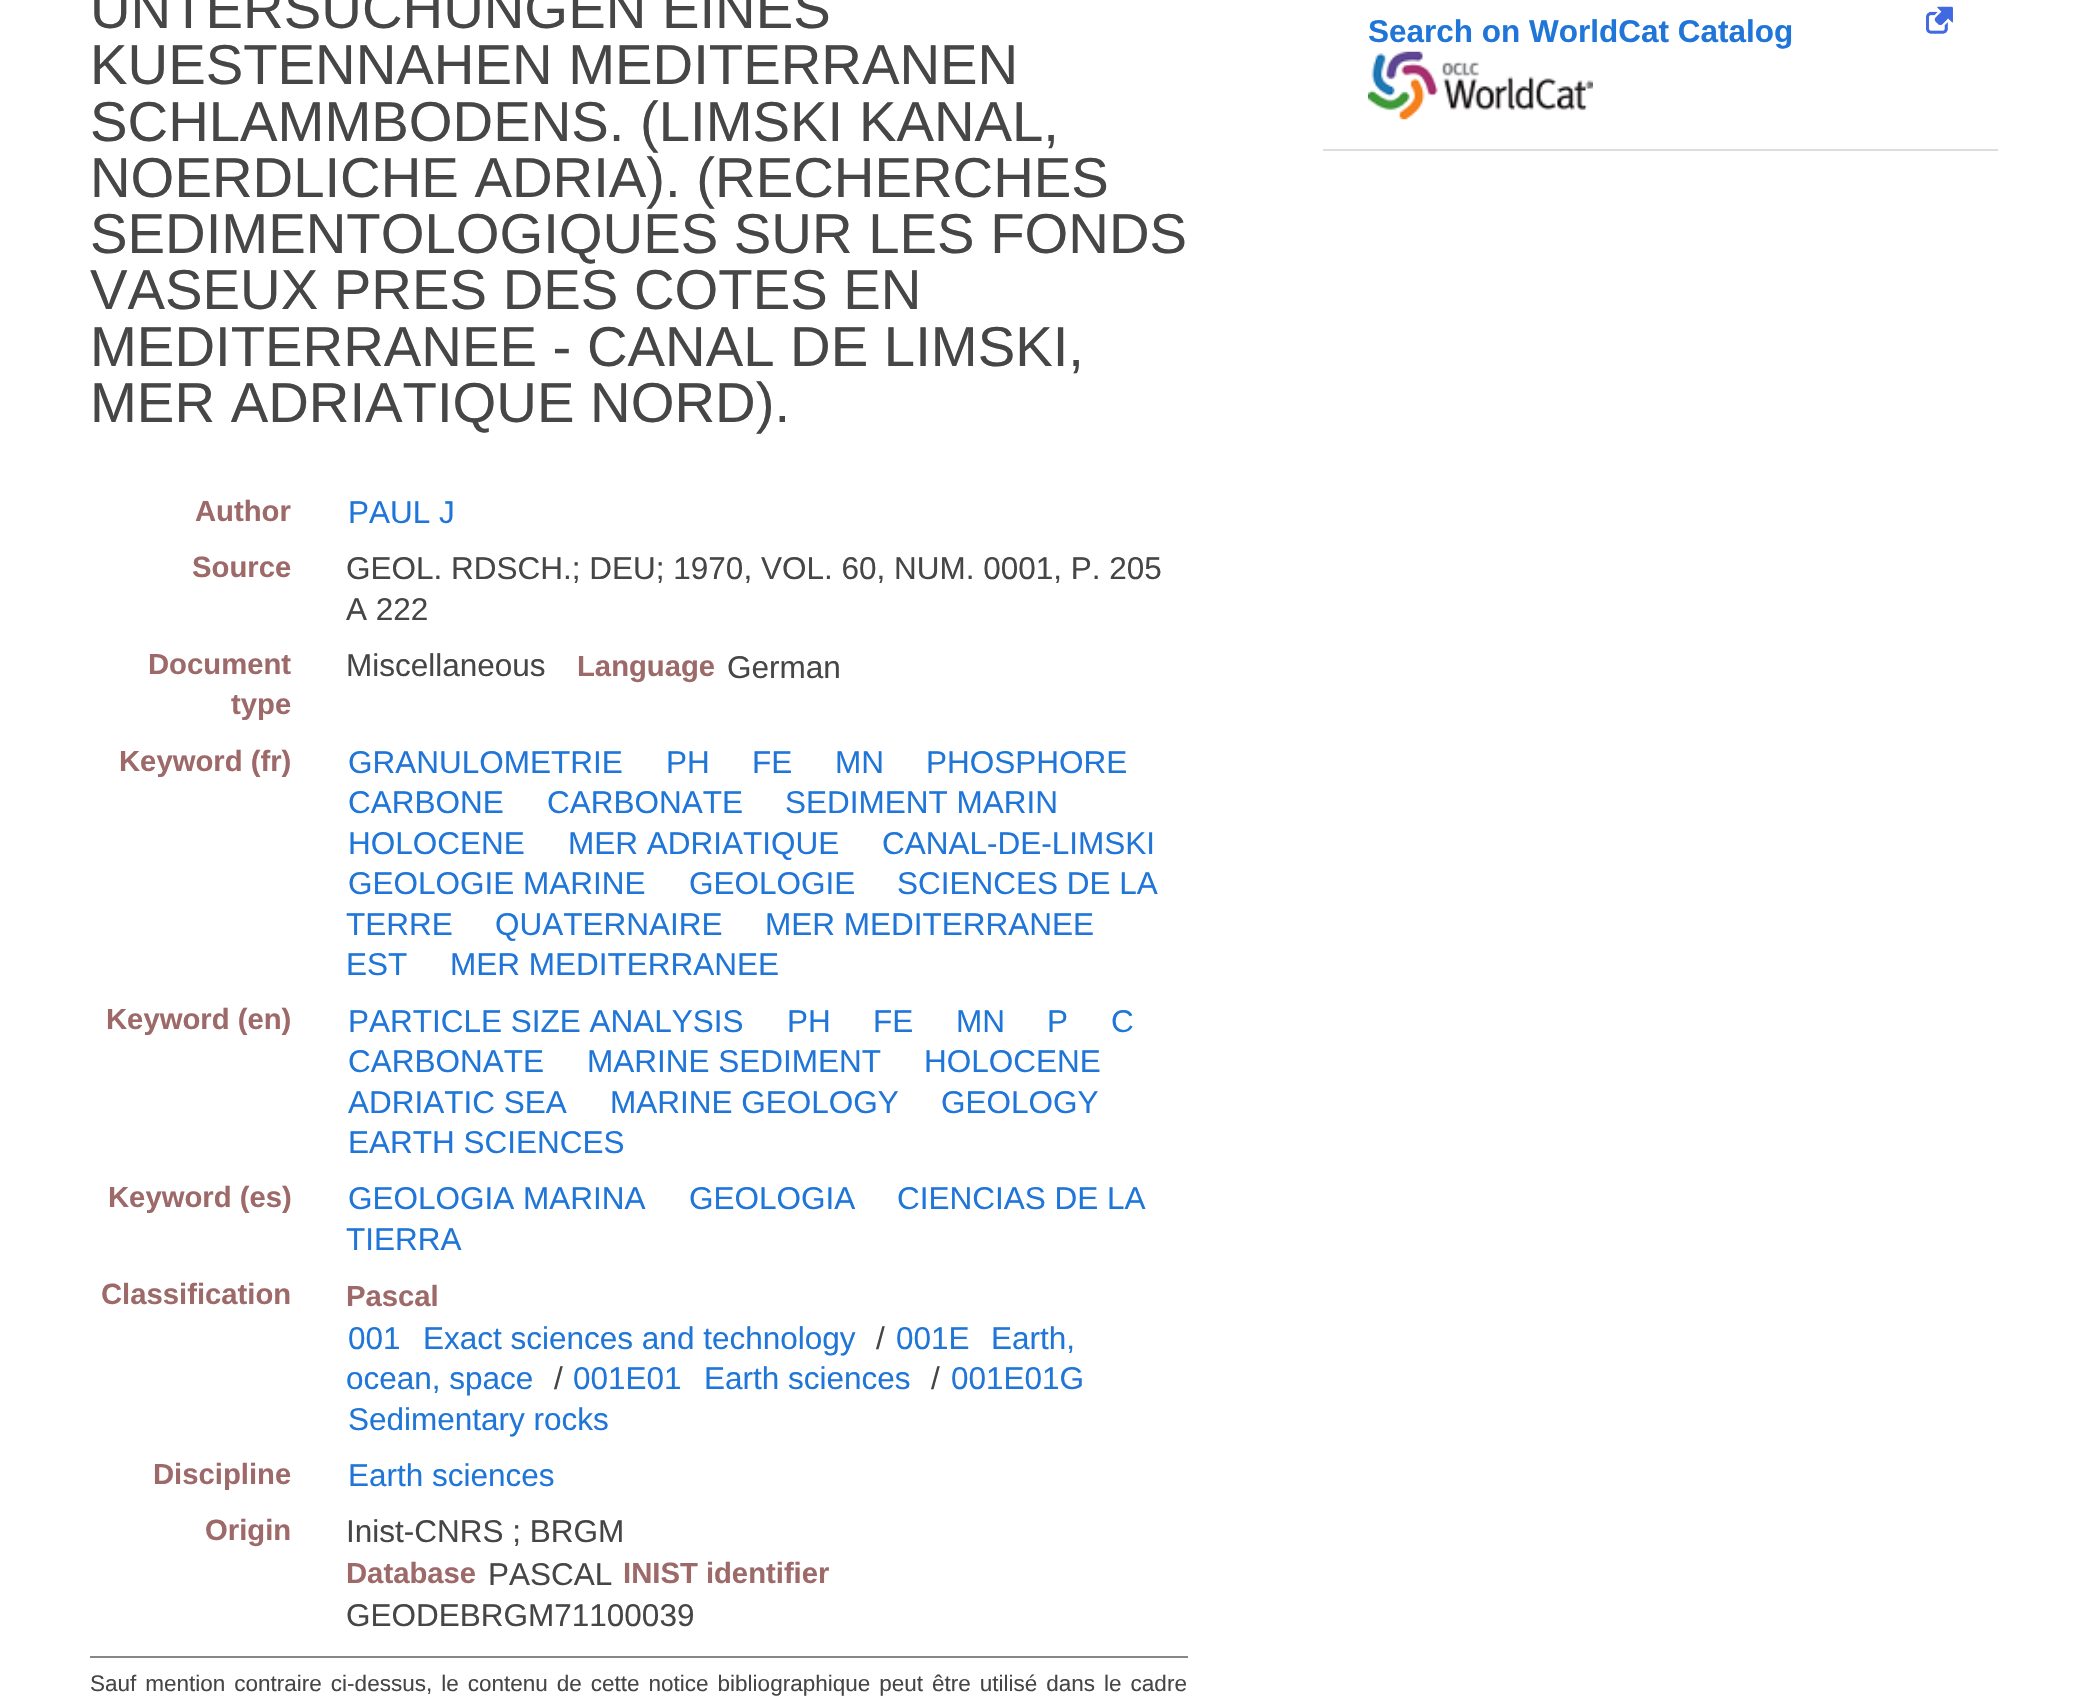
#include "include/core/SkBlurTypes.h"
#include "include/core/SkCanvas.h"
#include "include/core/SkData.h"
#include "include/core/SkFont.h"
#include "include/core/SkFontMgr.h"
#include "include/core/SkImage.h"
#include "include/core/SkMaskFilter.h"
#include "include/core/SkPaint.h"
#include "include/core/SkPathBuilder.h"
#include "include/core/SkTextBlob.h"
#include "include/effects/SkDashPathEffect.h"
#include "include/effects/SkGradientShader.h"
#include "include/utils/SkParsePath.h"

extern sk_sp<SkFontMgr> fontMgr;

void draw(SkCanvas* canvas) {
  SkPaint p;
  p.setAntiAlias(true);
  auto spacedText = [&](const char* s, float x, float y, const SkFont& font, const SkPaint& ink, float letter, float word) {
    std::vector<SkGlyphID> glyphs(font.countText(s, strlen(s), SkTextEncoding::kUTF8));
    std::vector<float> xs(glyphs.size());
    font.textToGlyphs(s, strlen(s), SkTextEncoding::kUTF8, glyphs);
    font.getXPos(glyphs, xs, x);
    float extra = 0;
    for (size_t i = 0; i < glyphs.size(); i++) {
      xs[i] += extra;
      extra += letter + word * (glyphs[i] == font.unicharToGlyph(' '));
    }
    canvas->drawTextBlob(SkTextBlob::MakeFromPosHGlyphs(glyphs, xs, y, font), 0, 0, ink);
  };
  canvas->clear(SK_ColorWHITE);
  p.setColor(SkColorSetRGB(135, 135, 135));
  canvas->drawRect(SkRect::MakeLTRB(90, 1656, 1188, 1658), p);
  p.setColor(SkColorSetRGB(221, 221, 221));
  canvas->drawRect(SkRect::MakeLTRB(1323, 149, 1998, 151), p);
  canvas->drawImageRect(SkImages::DeferredFromEncodedData(SkData::MakeFromFileName("images/1.png")), SkRect::MakeLTRB(1926, 6, 1953, 34), SkSamplingOptions());
  canvas->drawImageRect(SkImages::DeferredFromEncodedData(SkData::MakeFromFileName("images/2.png")), SkRect::MakeLTRB(1368, 51, 1593, 120), SkSamplingOptions());
  SkFont font1(fontMgr->matchFamilyStyle("Liberation Sans", SkFontStyle::Normal()), 56.25f);
  font1.setSubpixel(true);
  p.setColor(SkColorSetRGB(70, 70, 71));
  canvas->drawString("UNTERSUCHUNGEN EINES", 90, 28, font1, p);
  canvas->drawString("KUESTENNAHEN MEDITERRANEN", 90, 84, font1, p);
  canvas->drawString("SCHLAMMBODENS. (LIMSKI KANAL,", 90, 141, font1, p);
  canvas->drawString("NOERDLICHE ADRIA). (RECHERCHES", 90, 197, font1, p);
  canvas->drawString("SEDIMENTOLOGIQUES SUR LES FONDS", 90, 253, font1, p);
  canvas->drawString("VASEUX PRES DES COTES EN", 90, 309, font1, p);
  canvas->drawString("MEDITERRANEE - CANAL DE LIMSKI,", 90, 366, font1, p);
  canvas->drawString("MER ADRIATIQUE NORD).", 90, 422, font1, p);
  SkFont font2(fontMgr->matchFamilyStyle("Liberation Sans", SkFontStyle::Bold()), 29.25f);
  font2.setSubpixel(true);
  p.setColor(SkColorSetRGB(157, 105, 105));
  canvas->drawString("Author", 195, 521, font2, p);
  SkFont font3(fontMgr->matchFamilyStyle("Liberation Sans", SkFontStyle::Normal()), 31.5f);
  font3.setSubpixel(true);
  p.setColor(SkColorSetRGB(32, 118, 216));
  canvas->drawString("PAUL J", 348, 523, font3, p);
  p.setColor(SkColorSetRGB(157, 105, 105));
  canvas->drawString("Source", 192, 577, font2, p);
  p.setColor(SkColorSetRGB(70, 70, 71));
  canvas->drawString("GEOL. RDSCH.; DEU; 1970, VOL. 60, NUM. 0001, P. 205", 346, 579, font3, p);
  canvas->drawString("A 222", 346, 620, font3, p);
  p.setColor(SkColorSetRGB(157, 105, 105));
  canvas->drawString("Document", 148, 674, font2, p);
  canvas->drawString("type", 231, 714, font2, p);
  p.setColor(SkColorSetRGB(70, 70, 71));
  canvas->drawString("Miscellaneous", 346, 676, font3, p);
  p.setColor(SkColorSetRGB(157, 105, 105));
  canvas->drawString("Language", 577, 676, font2, p);
  p.setColor(SkColorSetRGB(70, 70, 71));
  canvas->drawString("German", 727, 678, font3, p);
  p.setColor(SkColorSetRGB(157, 105, 105));
  canvas->drawString("Keyword (fr)", 119, 771, font2, p);
  p.setColor(SkColorSetRGB(32, 118, 216));
  canvas->drawString("GRANULOMETRIE", 348, 773, font3, p);
  canvas->drawString("PH", 666, 773, font3, p);
  canvas->drawString("FE", 752, 773, font3, p);
  canvas->drawString("MN", 835, 773, font3, p);
  canvas->drawString("PHOSPHORE", 926, 773, font3, p);
  canvas->drawString("CARBONE", 348, 813, font3, p);
  canvas->drawString("CARBONATE", 547, 813, font3, p);
  canvas->drawString("SEDIMENT MARIN", 785, 813, font3, p);
  canvas->drawString("HOLOCENE", 348, 854, font3, p);
  canvas->drawString("MER ADRIATIQUE", 568, 854, font3, p);
  canvas->drawString("CANAL-DE-LIMSKI", 882, 854, font3, p);
  canvas->drawString("GEOLOGIE MARINE", 348, 894, font3, p);
  canvas->drawString("GEOLOGIE", 689, 894, font3, p);
  canvas->drawString("SCIENCES DE LA", 897, 894, font3, p);
  canvas->drawString("TERRE", 346, 935, font3, p);
  canvas->drawString("QUATERNAIRE", 495, 935, font3, p);
  canvas->drawString("MER MEDITERRANEE", 765, 935, font3, p);
  canvas->drawString("EST", 346, 975, font3, p);
  canvas->drawString("MER MEDITERRANEE", 450, 975, font3, p);
  p.setColor(SkColorSetRGB(157, 105, 105));
  canvas->drawString("Keyword (en)", 106, 1029, font2, p);
  p.setColor(SkColorSetRGB(32, 118, 216));
  canvas->drawString("PARTICLE SIZE ANALYSIS", 348, 1032, font3, p);
  canvas->drawString("PH", 787, 1032, font3, p);
  canvas->drawString("FE", 873, 1032, font3, p);
  canvas->drawString("MN", 956, 1032, font3, p);
  canvas->drawString("P", 1047, 1032, font3, p);
  canvas->drawString("C", 1111, 1032, font3, p);
  canvas->drawString("CARBONATE", 348, 1072, font3, p);
  canvas->drawString("MARINE SEDIMENT", 587, 1072, font3, p);
  canvas->drawString("HOLOCENE", 924, 1072, font3, p);
  canvas->drawString("ADRIATIC SEA", 348, 1113, font3, p);
  canvas->drawString("MARINE GEOLOGY", 610, 1113, font3, p);
  canvas->drawString("GEOLOGY", 941, 1113, font3, p);
  canvas->drawString("EARTH SCIENCES", 348, 1153, font3, p);
  p.setColor(SkColorSetRGB(157, 105, 105));
  canvas->drawString("Keyword (es)", 108, 1207, font2, p);
  p.setColor(SkColorSetRGB(32, 118, 216));
  canvas->drawString("GEOLOGIA MARINA", 348, 1209, font3, p);
  canvas->drawString("GEOLOGIA", 689, 1209, font3, p);
  canvas->drawString("CIENCIAS DE LA", 897, 1209, font3, p);
  canvas->drawString("TIERRA", 346, 1250, font3, p);
  p.setColor(SkColorSetRGB(157, 105, 105));
  canvas->drawString("Classification", 101, 1304, font2, p);
  canvas->drawString("Pascal", 346, 1306, font2, p);
  p.setColor(SkColorSetRGB(32, 118, 216));
  canvas->drawString("001", 348, 1349, font3, p);
  canvas->drawString("Exact sciences and technology", 423, 1349, font3, p);
  p.setColor(SkColorSetRGB(70, 70, 71));
  canvas->drawString("/", 876, 1349, font3, p);
  p.setColor(SkColorSetRGB(32, 118, 216));
  canvas->drawString("001E", 896, 1349, font3, p);
  canvas->drawString("Earth,", 991, 1349, font3, p);
  canvas->drawString("ocean, space", 346, 1389, font3, p);
  p.setColor(SkColorSetRGB(70, 70, 71));
  canvas->drawString("/", 554, 1389, font3, p);
  p.setColor(SkColorSetRGB(32, 118, 216));
  canvas->drawString("001E01", 573, 1389, font3, p);
  canvas->drawString("Earth sciences", 704, 1389, font3, p);
  p.setColor(SkColorSetRGB(70, 70, 71));
  canvas->drawString("/", 931, 1389, font3, p);
  p.setColor(SkColorSetRGB(32, 118, 216));
  canvas->drawString("001E01G", 951, 1389, font3, p);
  canvas->drawString("Sedimentary rocks", 348, 1430, font3, p);
  p.setColor(SkColorSetRGB(157, 105, 105));
  canvas->drawString("Discipline", 153, 1484, font2, p);
  p.setColor(SkColorSetRGB(32, 118, 216));
  canvas->drawString("Earth sciences", 348, 1486, font3, p);
  p.setColor(SkColorSetRGB(157, 105, 105));
  canvas->drawString("Origin", 205, 1540, font2, p);
  p.setColor(SkColorSetRGB(70, 70, 71));
  canvas->drawString("Inist-CNRS ; BRGM", 346, 1542, font3, p);
  p.setColor(SkColorSetRGB(157, 105, 105));
  canvas->drawString("Database", 346, 1583, font2, p);
  p.setColor(SkColorSetRGB(70, 70, 71));
  canvas->drawString("PASCAL", 488, 1585, font3, p);
  p.setColor(SkColorSetRGB(157, 105, 105));
  canvas->drawString("INIST identifier", 623, 1583, font2, p);
  p.setColor(SkColorSetRGB(70, 70, 71));
  canvas->drawString("GEODEBRGM71100039", 346, 1626, font3, p);
  SkFont font4(fontMgr->matchFamilyStyle("Liberation Sans", SkFontStyle::Normal()), 22.5f);
  font4.setSubpixel(true);
  spacedText("Sauf mention contraire ci-dessus, le contenu de cette notice bibliographique peut être utilisé dans le cadre", 90, 1691, font4, p, 0, 2.75f);
  SkFont font5(fontMgr->matchFamilyStyle("Liberation Sans", SkFontStyle::Bold()), 31.5f);
  font5.setSubpixel(true);
  p.setColor(SkColorSetRGB(32, 118, 216));
  canvas->drawString("Search on WorldCat Catalog", 1368, 42, font5, p);
}
